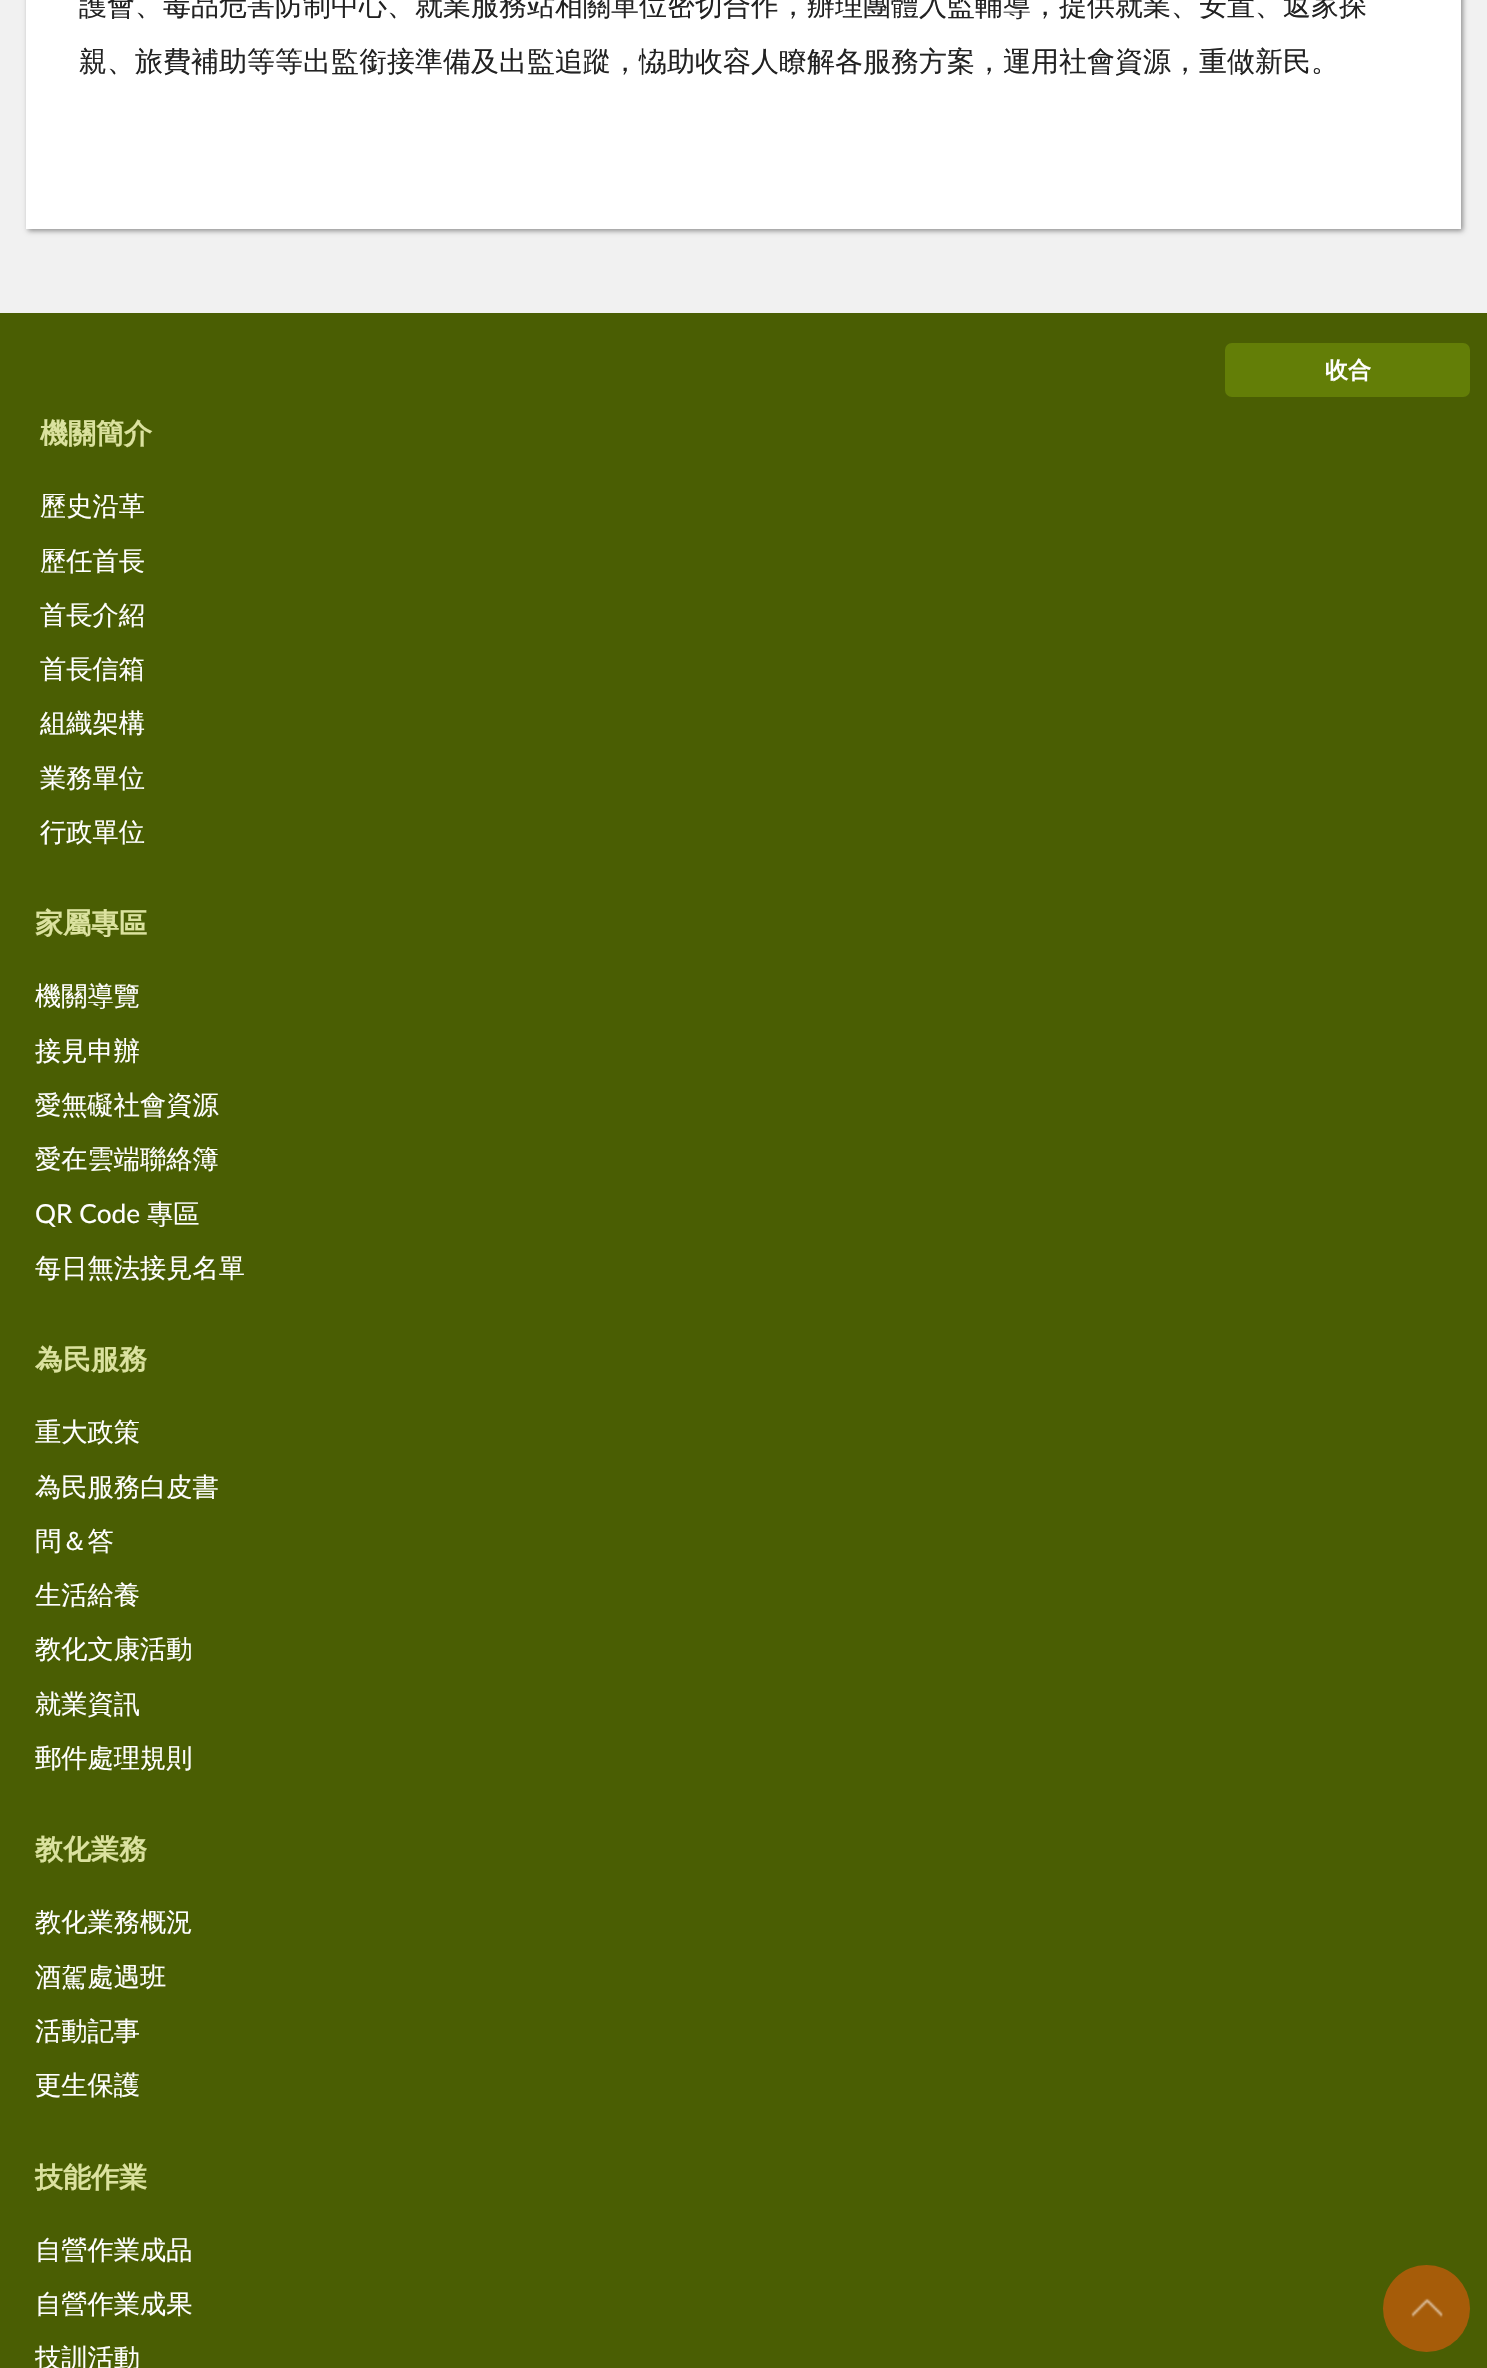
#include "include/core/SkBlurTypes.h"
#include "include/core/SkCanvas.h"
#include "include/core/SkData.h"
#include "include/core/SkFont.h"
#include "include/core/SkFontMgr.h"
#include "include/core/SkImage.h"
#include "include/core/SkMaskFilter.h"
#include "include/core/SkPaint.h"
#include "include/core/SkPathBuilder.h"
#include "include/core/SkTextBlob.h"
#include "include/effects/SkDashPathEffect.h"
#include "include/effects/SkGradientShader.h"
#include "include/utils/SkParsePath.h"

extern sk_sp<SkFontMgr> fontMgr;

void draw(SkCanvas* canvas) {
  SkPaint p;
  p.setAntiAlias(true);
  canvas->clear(SkColorSetRGB(241, 241, 241));
  p.setColor(SkColorSetARGB(102, 0, 0, 0));
  p.setMaskFilter(SkMaskFilter::MakeBlur(kNormal_SkBlurStyle, 2.5f));
  canvas->drawRect(SkRect::MakeLTRB(28, -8, 1463, 231), p);
  p.setMaskFilter(nullptr);
  p.setColor(SK_ColorWHITE);
  canvas->drawRect(SkRect::MakeLTRB(26, 0, 1461, 229), p);
  p.setColor(SkColorSetRGB(74, 94, 3));
  canvas->drawRect(SkRect::MakeLTRB(0, 313, 1487, 2368), p);
  p.setColor(SkColorSetRGB(99, 126, 7));
  canvas->drawRoundRect(SkRect::MakeLTRB(1225, 343, 1470, 397), 7, 7, p);
  p.setColor(SkColorSetRGB(166, 92, 9));
  canvas->drawCircle(1426.5f, 2308.5f, 43.5f, p);
  canvas->drawImageRect(SkImages::DeferredFromEncodedData(SkData::MakeFromFileName("images/1.png")), SkRect::MakeLTRB(1411, 2298, 1443, 2318), SkSamplingOptions());
  SkFont font1(fontMgr->matchFamilyStyle("WenQuanYi Zen Hei", SkFontStyle(500, SkFontStyle::kNormal_Width, SkFontStyle::kUpright_Slant)), 28);
  font1.setSubpixel(true);
  p.setColor(SkColorSetRGB(34, 34, 34));
  canvas->drawString("護會、毒品危害防制中心、就業服務站相關單位密切合作，辦理團體入監輔導，提供就業、安置、返家探", 79, 15, font1, p);
  canvas->drawString("親、旅費補助等等出監銜接準備及出監追蹤，恊助收容人瞭解各服務方案，運用社會資源，重做新民。", 79, 71, font1, p);
  SkFont font2(fontMgr->matchFamilyStyle("WenQuanYi Zen Hei", SkFontStyle::Bold()), 23);
  font2.setSubpixel(true);
  p.setColor(SK_ColorWHITE);
  canvas->drawString("收合", 1325, 378, font2, p);
  SkFont font3(fontMgr->matchFamilyStyle("WenQuanYi Zen Hei", SkFontStyle::Bold()), 28);
  font3.setSubpixel(true);
  p.setColor(SkColorSetRGB(219, 226, 159));
  canvas->drawString("機關簡介", 40, 443, font3, p);
  SkFont font4(fontMgr->matchFamilyStyle("WenQuanYi Zen Hei", SkFontStyle(500, SkFontStyle::kNormal_Width, SkFontStyle::kUpright_Slant)), 26.25f);
  font4.setSubpixel(true);
  p.setColor(SK_ColorWHITE);
  canvas->drawString("歷史沿革", 40, 515, font4, p);
  canvas->drawString("歷任首長", 40, 570, font4, p);
  canvas->drawString("首長介紹", 40, 624, font4, p);
  canvas->drawString("首長信箱", 40, 678, font4, p);
  canvas->drawString("組織架構", 40, 732, font4, p);
  canvas->drawString("業務單位", 40, 787, font4, p);
  canvas->drawString("行政單位", 40, 841, font4, p);
  p.setColor(SkColorSetRGB(219, 226, 159));
  canvas->drawString("家屬專區", 35, 933, font3, p);
  p.setColor(SK_ColorWHITE);
  canvas->drawString("機關導覽", 35, 1005, font4, p);
  canvas->drawString("接見申辦", 35, 1060, font4, p);
  canvas->drawString("愛無礙社會資源", 35, 1114, font4, p);
  canvas->drawString("愛在雲端聯絡簿", 35, 1168, font4, p);
  SkFont font5(fontMgr->matchFamilyStyle("Lato", SkFontStyle::Normal()), 26.25f);
  font5.setSubpixel(true);
  canvas->drawString("QR Code", 35, 1223, font5, p);
  canvas->drawString("專區", 147, 1223, font4, p);
  canvas->drawString("每日無法接見名單", 35, 1277, font4, p);
  p.setColor(SkColorSetRGB(219, 226, 159));
  canvas->drawString("為民服務", 35, 1369, font3, p);
  p.setColor(SK_ColorWHITE);
  canvas->drawString("重大政策", 35, 1441, font4, p);
  canvas->drawString("為民服務白皮書", 35, 1496, font4, p);
  canvas->drawString("問＆答", 35, 1550, font4, p);
  canvas->drawString("生活給養", 35, 1604, font4, p);
  canvas->drawString("教化文康活動", 35, 1658, font4, p);
  canvas->drawString("就業資訊", 35, 1713, font4, p);
  canvas->drawString("郵件處理規則", 35, 1767, font4, p);
  p.setColor(SkColorSetRGB(219, 226, 159));
  canvas->drawString("教化業務", 35, 1859, font3, p);
  p.setColor(SK_ColorWHITE);
  canvas->drawString("教化業務概況", 35, 1931, font4, p);
  canvas->drawString("酒駕處遇班", 35, 1986, font4, p);
  canvas->drawString("活動記事", 35, 2040, font4, p);
  canvas->drawString("更生保護", 35, 2094, font4, p);
  p.setColor(SkColorSetRGB(219, 226, 159));
  canvas->drawString("技能作業", 35, 2187, font3, p);
  p.setColor(SK_ColorWHITE);
  canvas->drawString("自營作業成品", 35, 2259, font4, p);
  canvas->drawString("自營作業成果", 35, 2313, font4, p);
  canvas->drawString("技訓活動", 35, 2367, font4, p);
}
